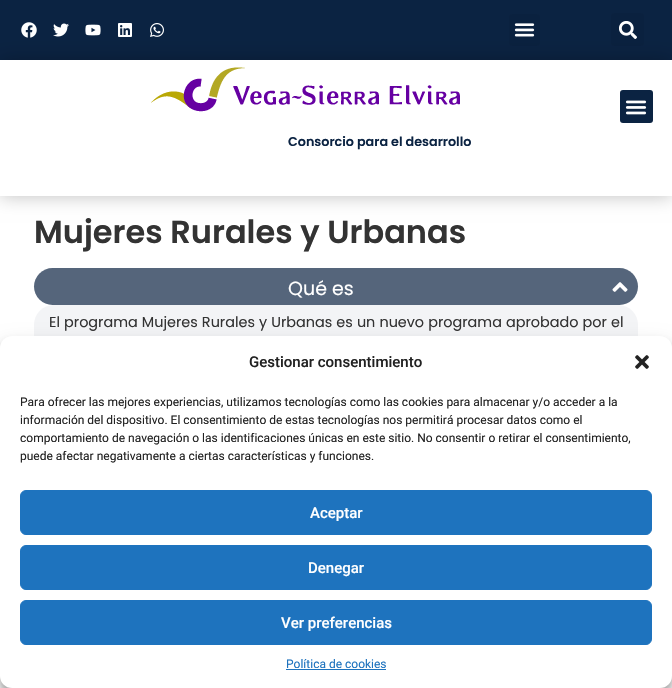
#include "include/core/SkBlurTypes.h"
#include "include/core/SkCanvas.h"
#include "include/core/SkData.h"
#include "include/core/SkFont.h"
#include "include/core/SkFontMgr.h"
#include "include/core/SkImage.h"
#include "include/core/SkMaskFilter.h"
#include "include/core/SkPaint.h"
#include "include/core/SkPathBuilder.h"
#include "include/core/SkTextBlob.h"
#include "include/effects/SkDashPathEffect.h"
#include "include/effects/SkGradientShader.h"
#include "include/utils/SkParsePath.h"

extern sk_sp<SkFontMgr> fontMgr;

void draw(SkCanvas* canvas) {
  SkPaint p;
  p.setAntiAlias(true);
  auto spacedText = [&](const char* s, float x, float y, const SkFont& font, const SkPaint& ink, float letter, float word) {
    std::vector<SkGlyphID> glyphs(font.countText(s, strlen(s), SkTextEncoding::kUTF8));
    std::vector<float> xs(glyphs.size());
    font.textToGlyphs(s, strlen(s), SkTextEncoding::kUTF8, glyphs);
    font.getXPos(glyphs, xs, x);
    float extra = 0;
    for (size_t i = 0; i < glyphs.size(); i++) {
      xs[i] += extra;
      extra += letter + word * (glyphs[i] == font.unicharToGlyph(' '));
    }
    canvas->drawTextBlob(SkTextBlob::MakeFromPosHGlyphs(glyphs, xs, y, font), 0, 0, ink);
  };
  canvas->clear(SK_ColorWHITE);
  p.setColor(SkColorSetRGB(11, 35, 66));
  canvas->drawRect(SkRect::MakeLTRB(0, 0, 672, 60), p);
  canvas->drawImageRect(SkImages::DeferredFromEncodedData(SkData::MakeFromFileName("images/1.png")), SkRect::MakeLTRB(21, 22, 37, 38), SkSamplingOptions());
  canvas->drawImageRect(SkImages::DeferredFromEncodedData(SkData::MakeFromFileName("images/2.png")), SkRect::MakeLTRB(53, 23, 69, 37), SkSamplingOptions());
  canvas->drawImageRect(SkImages::DeferredFromEncodedData(SkData::MakeFromFileName("images/3.png")), SkRect::MakeLTRB(85, 24, 101, 36), SkSamplingOptions());
  canvas->drawImageRect(SkImages::DeferredFromEncodedData(SkData::MakeFromFileName("images/4.png")), SkRect::MakeLTRB(118, 23, 132, 37), SkSamplingOptions());
  canvas->drawImageRect(SkImages::DeferredFromEncodedData(SkData::MakeFromFileName("images/5.png")), SkRect::MakeLTRB(150, 23, 164, 37), SkSamplingOptions());
  p.setColor(SkColorSetRGB(10, 33, 63));
  canvas->drawRoundRect(SkRect::MakeLTRB(509, 14, 540, 46), 3, 3, p);
  canvas->drawImageRect(SkImages::DeferredFromEncodedData(SkData::MakeFromFileName("images/6.png")), SkRect::MakeLTRB(514, 23, 535, 37), SkSamplingOptions());
  canvas->drawRoundRect(SkRect::MakeLTRB(611, 13, 644, 46), 3, 3, p);
  canvas->drawImageRect(SkImages::DeferredFromEncodedData(SkData::MakeFromFileName("images/7.png")), SkRect::MakeLTRB(619, 21, 637, 39), SkSamplingOptions());
  canvas->save();
  canvas->clipPath(SkPathBuilder(SkPathFillType::kEvenOdd).moveTo(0, 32).lineTo(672, 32).lineTo(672, 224).lineTo(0, 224).close().moveTo(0, 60).lineTo(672, 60).lineTo(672, 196).lineTo(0, 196).close().detach(), true);
  p.setColor(SkColorSetARGB(64, 0, 0, 0));
  p.setMaskFilter(SkMaskFilter::MakeBlur(kNormal_SkBlurStyle, 9));
  canvas->drawRect(SkRect::MakeLTRB(0, 60, 672, 196), p);
  p.setMaskFilter(nullptr);
  canvas->restore();
  p.setColor(SkColorSetRGB(11, 35, 66));
  canvas->drawRoundRect(SkRect::MakeLTRB(620, 90, 653, 123), 3, 3, p);
  canvas->drawImageRect(SkImages::DeferredFromEncodedData(SkData::MakeFromFileName("images/8.png")), SkRect::MakeLTRB(625, 100, 647, 115), SkSamplingOptions());
  canvas->drawImageRect(SkImages::DeferredFromEncodedData(SkData::MakeFromFileName("images/9.png")), SkRect::MakeLTRB(151, 67, 460, 112), SkSamplingOptions());
  p.setColor(SkColorSetRGB(85, 101, 123));
  canvas->drawRoundRect(SkRect::MakeLTRB(34, 268, 638, 305), 18.5f, 18.5f, p);
  canvas->drawImageRect(SkImages::DeferredFromEncodedData(SkData::MakeFromFileName("images/10.png")), SkRect::MakeLTRB(612, 282, 628, 292), SkSamplingOptions());
  p.setColor(SkColorSetRGB(243, 244, 246));
  canvas->drawRoundRect(SkRect::MakeLTRB(34, 305, 638, 441), 20, 20, p);
  p.setColor(SkColorSetARGB(59, 0, 0, 0));
  p.setMaskFilter(SkMaskFilter::MakeBlur(kNormal_SkBlurStyle, 3));
  canvas->drawRoundRect(SkRect::MakeLTRB(0, 342, 672, 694), 12, 12, p);
  p.setMaskFilter(nullptr);
  p.setColor(SkColorSetARGB(48, 0, 0, 0));
  p.setMaskFilter(SkMaskFilter::MakeBlur(kNormal_SkBlurStyle, 10));
  canvas->drawRoundRect(SkRect::MakeLTRB(0, 346, 672, 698), 12, 12, p);
  p.setMaskFilter(nullptr);
  p.setColor(SK_ColorWHITE);
  canvas->drawRoundRect(SkRect::MakeLTRB(0, 336, 672, 688), 12, 12, p);
  canvas->drawImageRect(SkImages::DeferredFromEncodedData(SkData::MakeFromFileName("images/11.png")), SkRect::MakeLTRB(635, 355, 649, 369), SkSamplingOptions());
  p.setColor(SkColorSetRGB(30, 115, 190));
  canvas->drawRoundRect(SkRect::MakeLTRB(20.5f, 490.5f, 651.5f, 534.5f), 5.5f, 5.5f, p);
  p.setStyle(SkPaint::kStroke_Style);
  p.setStrokeWidth(1);
  canvas->drawRoundRect(SkRect::MakeLTRB(20.5f, 490.5f, 651.5f, 534.5f), 5.5f, 5.5f, p);
  p.setStyle(SkPaint::kFill_Style);
  canvas->drawRoundRect(SkRect::MakeLTRB(20.5f, 545.5f, 651.5f, 589.5f), 5.5f, 5.5f, p);
  p.setStyle(SkPaint::kStroke_Style);
  canvas->drawRoundRect(SkRect::MakeLTRB(20.5f, 545.5f, 651.5f, 589.5f), 5.5f, 5.5f, p);
  p.setStyle(SkPaint::kFill_Style);
  canvas->drawRoundRect(SkRect::MakeLTRB(20.5f, 600.5f, 651.5f, 644.5f), 5.5f, 5.5f, p);
  p.setStyle(SkPaint::kStroke_Style);
  canvas->drawRoundRect(SkRect::MakeLTRB(20.5f, 600.5f, 651.5f, 644.5f), 5.5f, 5.5f, p);
  p.setStyle(SkPaint::kFill_Style);
  canvas->drawRect(SkRect::MakeLTRB(286, 669, 386, 670), p);
  SkFont font1(fontMgr->matchFamilyStyle("Poppins", SkFontStyle(600, SkFontStyle::kNormal_Width, SkFontStyle::kUpright_Slant)), 12.75f);
  font1.setSubpixel(true);
  p.setColor(SkColorSetRGB(11, 35, 66));
  canvas->drawString("Consorcio para el desarrollo", 288, 146, font1, p);
  SkFont font2(fontMgr->matchFamilyStyle("Poppins", SkFontStyle(600, SkFontStyle::kNormal_Width, SkFontStyle::kUpright_Slant)), 32);
  font2.setSubpixel(true);
  p.setColor(SkColorSetRGB(51, 51, 51));
  canvas->drawString("Mujeres Rurales y Urbanas", 34, 243, font2, p);
  SkFont font3(fontMgr->matchFamilyStyle("Poppins", SkFontStyle::Normal()), 19);
  font3.setSubpixel(true);
  p.setColor(SK_ColorWHITE);
  canvas->drawString("Qué es", 288, 295, font3, p);
  SkFont font4(fontMgr->matchFamilyStyle("Poppins", SkFontStyle::Normal()), 14.4f);
  font4.setSubpixel(true);
  p.setColor(SkColorSetRGB(51, 51, 51));
  spacedText("El programa Mujeres Rurales y Urbanas es un nuevo programa aprobado por el", 49, 327, font4, p, 0, 0.25f);
  SkFont font5(fontMgr->matchFamilyStyle("Roboto", SkFontStyle(500, SkFontStyle::kNormal_Width, SkFontStyle::kUpright_Slant)), 15);
  font5.setSubpixel(true);
  p.setColor(SkColorSetRGB(34, 34, 34));
  canvas->drawString("Gestionar consentimiento", 249, 367, font5, p);
  SkFont font6(fontMgr->matchFamilyStyle("Roboto", SkFontStyle::Normal()), 12);
  font6.setSubpixel(true);
  canvas->drawString("Para ofrecer las mejores experiencias, utilizamos tecnologías como las cookies para almacenar y/o acceder a la", 20, 406, font6, p);
  canvas->drawString("información del dispositivo. El consentimiento de estas tecnologías nos permitirá procesar datos como el", 20, 424, font6, p);
  canvas->drawString("comportamiento de navegación o las identificaciones únicas en este sitio. No consentir o retirar el consentimiento,", 20, 442, font6, p);
  canvas->drawString("puede afectar negativamente a ciertas características y funciones.", 20, 460, font6, p);
  p.setColor(SK_ColorWHITE);
  canvas->drawString("Aceptar", 310, 518, font5, p);
  canvas->drawString("Denegar", 308, 573, font5, p);
  canvas->drawString("Ver preferencias", 281, 628, font5, p);
  p.setColor(SkColorSetRGB(30, 115, 190));
  canvas->drawString("Política de cookies", 286, 668, font6, p);
}
